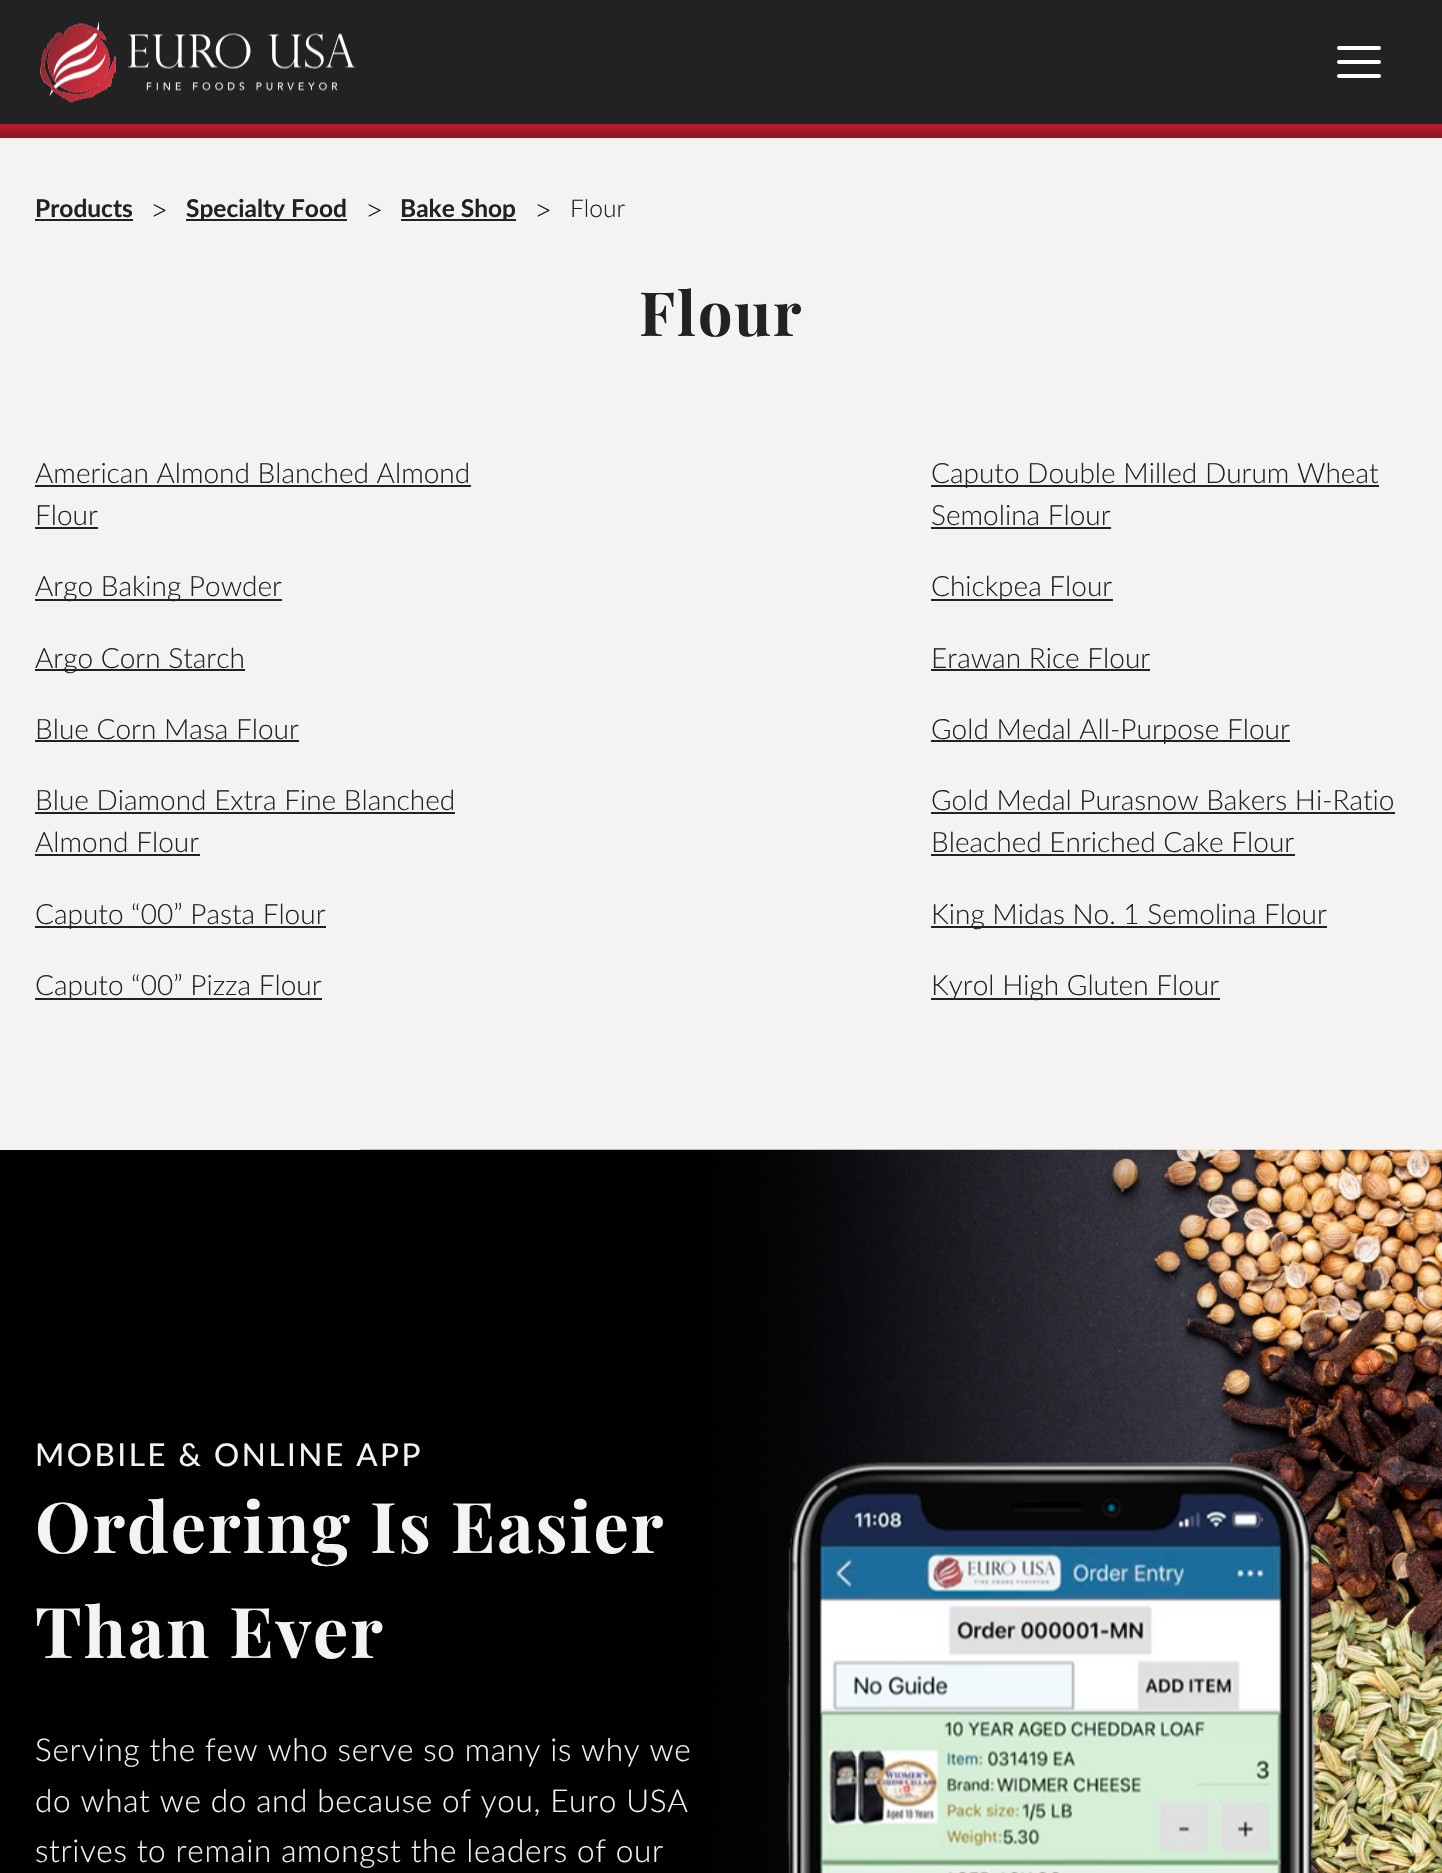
#include "include/core/SkBlurTypes.h"
#include "include/core/SkCanvas.h"
#include "include/core/SkData.h"
#include "include/core/SkFont.h"
#include "include/core/SkFontMgr.h"
#include "include/core/SkImage.h"
#include "include/core/SkMaskFilter.h"
#include "include/core/SkPaint.h"
#include "include/core/SkPathBuilder.h"
#include "include/core/SkTextBlob.h"
#include "include/effects/SkDashPathEffect.h"
#include "include/effects/SkGradientShader.h"
#include "include/utils/SkParsePath.h"

extern sk_sp<SkFontMgr> fontMgr;

void draw(SkCanvas* canvas) {
  SkPaint p;
  p.setAntiAlias(true);
  auto spacedText = [&](const char* s, float x, float y, const SkFont& font, const SkPaint& ink, float letter, float word) {
    std::vector<SkGlyphID> glyphs(font.countText(s, strlen(s), SkTextEncoding::kUTF8));
    std::vector<float> xs(glyphs.size());
    font.textToGlyphs(s, strlen(s), SkTextEncoding::kUTF8, glyphs);
    font.getXPos(glyphs, xs, x);
    float extra = 0;
    for (size_t i = 0; i < glyphs.size(); i++) {
      xs[i] += extra;
      extra += letter + word * (glyphs[i] == font.unicharToGlyph(' '));
    }
    canvas->drawTextBlob(SkTextBlob::MakeFromPosHGlyphs(glyphs, xs, y, font), 0, 0, ink);
  };
  canvas->clear(SkColorSetRGB(245, 243, 241));
  p.setColor(SkColorSetRGB(34, 34, 34));
  canvas->drawRect(SkRect::MakeLTRB(0, 0, 1442, 124), p);
  canvas->drawImageRect(SkImages::DeferredFromEncodedData(SkData::MakeFromFileName("images/1.png")), SkRect::MakeLTRB(40, 21, 356, 103), SkSamplingOptions());
  p.setColor(SK_ColorWHITE);
  canvas->drawRoundRect(SkRect::MakeLTRB(1337, 60, 1381, 64), 2, 2, p);
  canvas->drawRoundRect(SkRect::MakeLTRB(1337, 46, 1381, 50), 2, 2, p);
  canvas->drawRoundRect(SkRect::MakeLTRB(1337, 74, 1381, 78), 2, 2, p);
  {
    const SkColor colors[] = {SkColorSetRGB(196, 23, 45), SkColorSetRGB(134, 24, 37)};
    const float stops[] = {0, 1};
    const SkPoint ends[] = {{721, 124}, {721, 138}};
    p.setShader(SkGradientShader::MakeLinear(ends, colors, stops, 2, SkTileMode::kClamp));
    p.setAlpha(255);
  }
  canvas->drawRect(SkRect::MakeLTRB(0, 124, 1442, 138), p);
  p.setShader(nullptr);
  p.setColor(SkColorSetRGB(34, 34, 34));
  canvas->drawRect(SkRect::MakeLTRB(35, 219, 133, 221), p);
  canvas->drawRect(SkRect::MakeLTRB(186, 219, 347, 221), p);
  canvas->drawRect(SkRect::MakeLTRB(401, 219, 516, 221), p);
  canvas->drawRect(SkRect::MakeLTRB(35, 485, 471, 487), p);
  canvas->drawRect(SkRect::MakeLTRB(35, 527, 98, 529), p);
  canvas->drawRect(SkRect::MakeLTRB(931, 485, 1379, 487), p);
  canvas->drawRect(SkRect::MakeLTRB(931, 527, 1111, 529), p);
  canvas->drawRect(SkRect::MakeLTRB(35, 599, 282, 601), p);
  canvas->drawRect(SkRect::MakeLTRB(931, 599, 1113, 601), p);
  canvas->drawRect(SkRect::MakeLTRB(35, 669, 245, 671), p);
  canvas->drawRect(SkRect::MakeLTRB(931, 669, 1150, 671), p);
  canvas->drawRect(SkRect::MakeLTRB(35, 740, 299, 742), p);
  canvas->drawRect(SkRect::MakeLTRB(931, 740, 1290, 742), p);
  canvas->drawRect(SkRect::MakeLTRB(35, 812, 455, 814), p);
  canvas->drawRect(SkRect::MakeLTRB(35, 854, 200, 856), p);
  canvas->drawRect(SkRect::MakeLTRB(931, 812, 1395, 814), p);
  canvas->drawRect(SkRect::MakeLTRB(931, 854, 1295, 856), p);
  canvas->drawRect(SkRect::MakeLTRB(35, 926, 326, 928), p);
  canvas->drawRect(SkRect::MakeLTRB(931, 926, 1327, 928), p);
  canvas->drawRect(SkRect::MakeLTRB(35, 998, 322, 1000), p);
  canvas->drawRect(SkRect::MakeLTRB(931, 998, 1220, 1000), p);
  p.setColor(SkColorSetRGB(1, 1, 1));
  canvas->drawRect(SkRect::MakeLTRB(0, 1150, 361, 1873), p);
  canvas->drawImageRect(SkImages::DeferredFromEncodedData(SkData::MakeFromFileName("images/2.png")), SkRect::MakeLTRB(360, 1149, 1442, 1873), SkSamplingOptions());
  canvas->drawImageRect(SkImages::DeferredFromEncodedData(SkData::MakeFromFileName("images/3.png")), SkRect::MakeLTRB(787, 1462, 1356, 1873), SkSamplingOptions());
  SkFont font1(fontMgr->matchFamilyStyle("Lato", SkFontStyle::Bold()), 24.5f);
  font1.setSubpixel(true);
  p.setColor(SkColorSetRGB(34, 34, 34));
  canvas->drawString("Products", 35, 217, font1, p);
  SkFont font2(fontMgr->matchFamilyStyle("Lato", SkFontStyle(300, SkFontStyle::kNormal_Width, SkFontStyle::kUpright_Slant)), 31.5f);
  font2.setSubpixel(true);
  canvas->drawString(">", 150, 221, font2, p);
  canvas->drawString("Specialty Food", 186, 217, font1, p);
  canvas->drawString(">", 365, 221, font2, p);
  canvas->drawString("Bake Shop", 400, 217, font1, p);
  canvas->drawString(">", 534, 221, font2, p);
  SkFont font3(fontMgr->matchFamilyStyle("Lato", SkFontStyle(300, SkFontStyle::kNormal_Width, SkFontStyle::kUpright_Slant)), 24.5f);
  font3.setSubpixel(true);
  canvas->drawString("Flour", 570, 217, font3, p);
  SkFont font4(fontMgr->matchFamilyStyle("Playfair Display", SkFontStyle::Bold()), 61);
  font4.setSubpixel(true);
  spacedText("Flour", 639, 336, font4, p, 1.9f, 0);
  SkFont font5(fontMgr->matchFamilyStyle("Lato", SkFontStyle(300, SkFontStyle::kNormal_Width, SkFontStyle::kUpright_Slant)), 28);
  font5.setSubpixel(true);
  canvas->drawString("American Almond Blanched Almond", 35, 483, font5, p);
  canvas->drawString("Flour", 35, 525, font5, p);
  canvas->drawString("Caputo Double Milled Durum Wheat", 931, 483, font5, p);
  canvas->drawString("Semolina Flour", 931, 525, font5, p);
  canvas->drawString("Argo Baking Powder", 35, 596, font5, p);
  canvas->drawString("Chickpea Flour", 931, 596, font5, p);
  canvas->drawString("Argo Corn Starch", 35, 668, font5, p);
  canvas->drawString("Erawan Rice Flour", 931, 668, font5, p);
  canvas->drawString("Blue Corn Masa Flour", 35, 739, font5, p);
  canvas->drawString("Gold Medal All-Purpose Flour", 931, 739, font5, p);
  canvas->drawString("Blue Diamond Extra Fine Blanched", 35, 810, font5, p);
  canvas->drawString("Almond Flour", 35, 852, font5, p);
  canvas->drawString("Gold Medal Purasnow Bakers Hi-Ratio", 931, 810, font5, p);
  canvas->drawString("Bleached Enriched Cake Flour", 931, 852, font5, p);
  canvas->drawString("Caputo “00” Pasta Flour", 35, 924, font5, p);
  canvas->drawString("King Midas No. 1 Semolina Flour", 931, 924, font5, p);
  canvas->drawString("Caputo “00” Pizza Flour", 35, 995, font5, p);
  canvas->drawString("Kyrol High Gluten Flour", 931, 995, font5, p);
  SkFont font6(fontMgr->matchFamilyStyle("Lato", SkFontStyle::Normal()), 31.5f);
  font6.setSubpixel(true);
  p.setColor(SkColorSetRGB(245, 243, 241));
  spacedText("MOBILE & ONLINE APP", 35, 1466, font6, p, 2.5f, 0);
  SkFont font7(fontMgr->matchFamilyStyle("Playfair Display", SkFontStyle::Bold()), 70);
  font7.setSubpixel(true);
  spacedText("Ordering Is Easier", 35, 1553, font7, p, 1.9f, 0);
  spacedText("Than Ever", 35, 1658, font7, p, 1.9f, 0);
  spacedText("Serving the few who serve so many is why we", 35, 1761, font2, p, 0.65f, 0);
  spacedText("do what we do and because of you, Euro USA", 35, 1812, font2, p, 0.65f, 0);
  spacedText("strives to remain amongst the leaders of our", 35, 1862, font2, p, 0.65f, 0);
}
